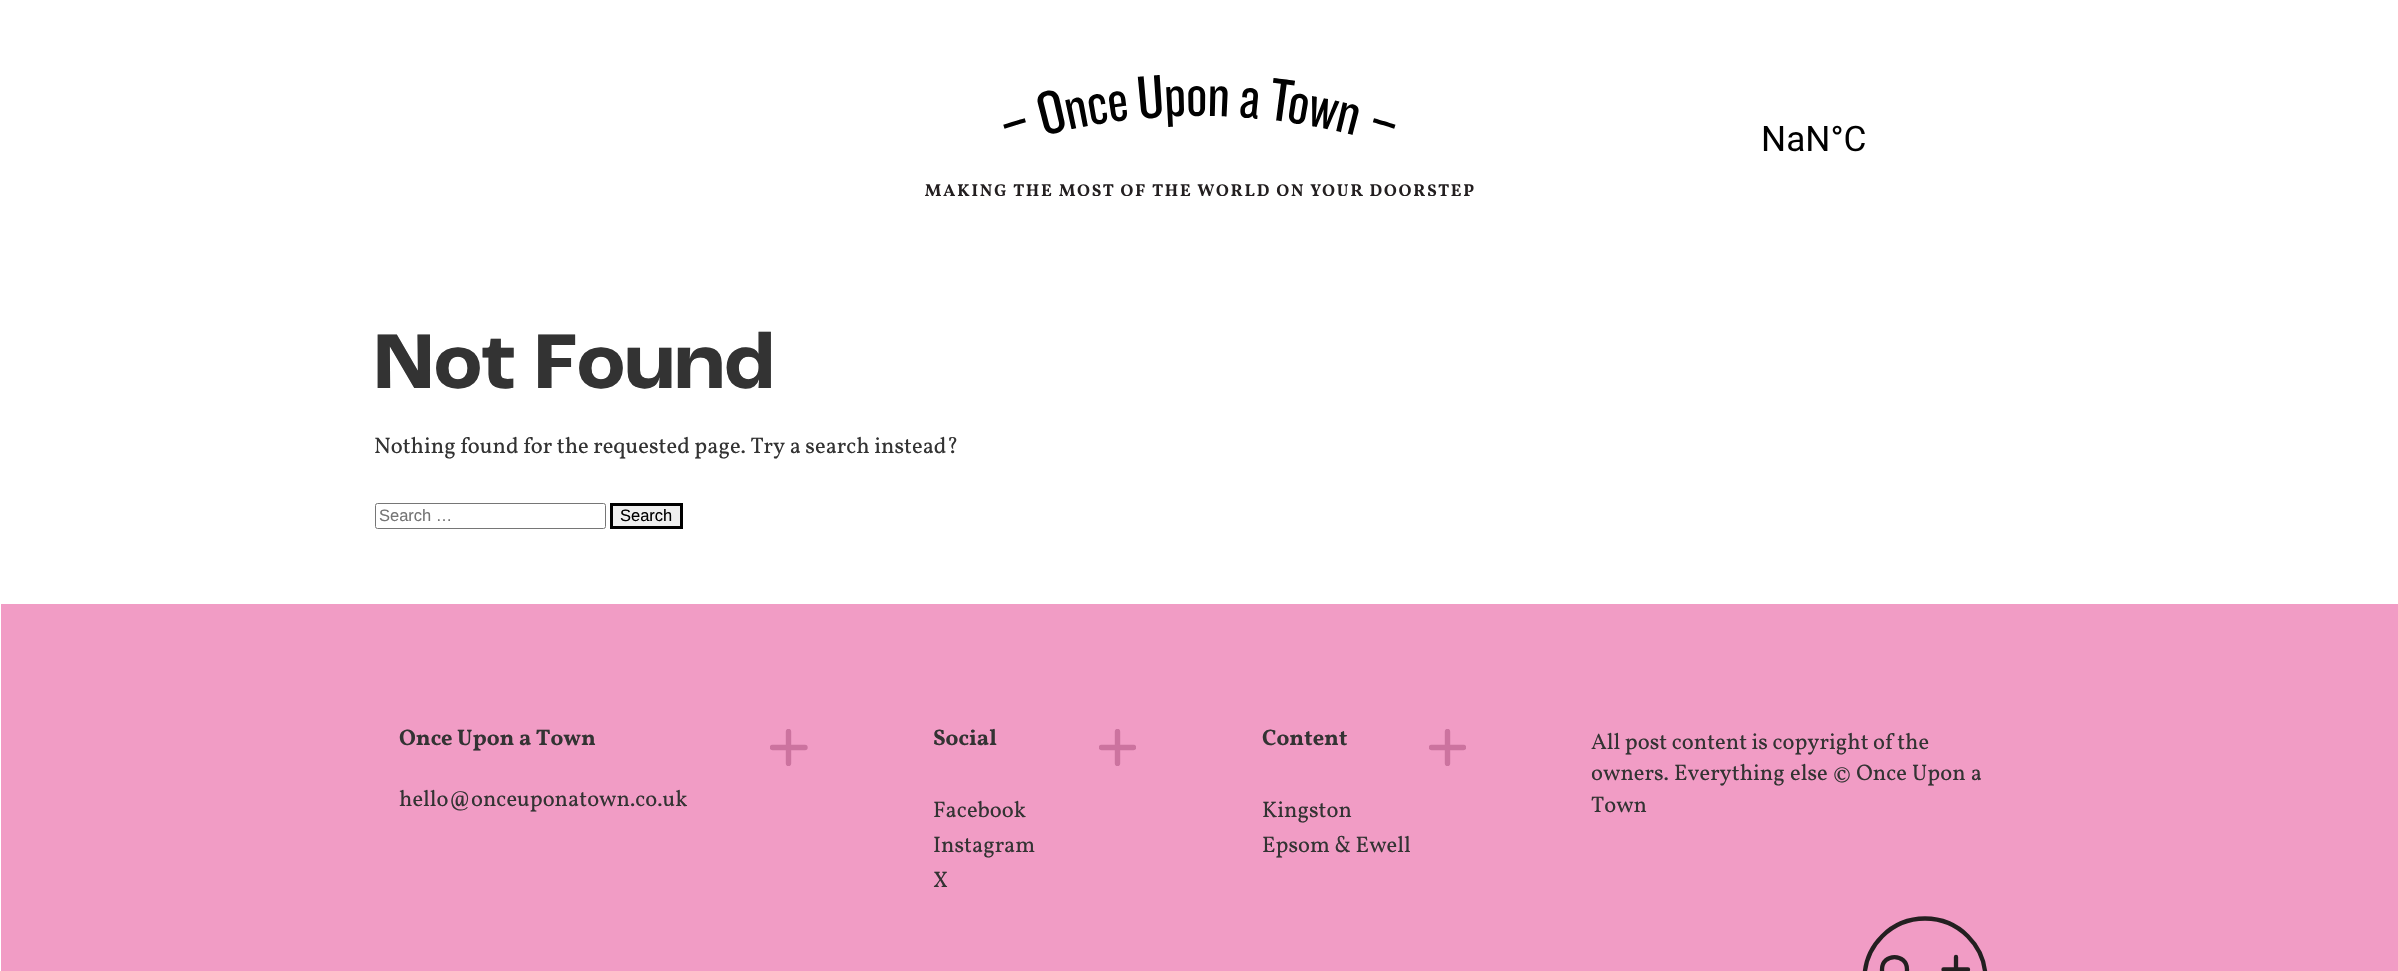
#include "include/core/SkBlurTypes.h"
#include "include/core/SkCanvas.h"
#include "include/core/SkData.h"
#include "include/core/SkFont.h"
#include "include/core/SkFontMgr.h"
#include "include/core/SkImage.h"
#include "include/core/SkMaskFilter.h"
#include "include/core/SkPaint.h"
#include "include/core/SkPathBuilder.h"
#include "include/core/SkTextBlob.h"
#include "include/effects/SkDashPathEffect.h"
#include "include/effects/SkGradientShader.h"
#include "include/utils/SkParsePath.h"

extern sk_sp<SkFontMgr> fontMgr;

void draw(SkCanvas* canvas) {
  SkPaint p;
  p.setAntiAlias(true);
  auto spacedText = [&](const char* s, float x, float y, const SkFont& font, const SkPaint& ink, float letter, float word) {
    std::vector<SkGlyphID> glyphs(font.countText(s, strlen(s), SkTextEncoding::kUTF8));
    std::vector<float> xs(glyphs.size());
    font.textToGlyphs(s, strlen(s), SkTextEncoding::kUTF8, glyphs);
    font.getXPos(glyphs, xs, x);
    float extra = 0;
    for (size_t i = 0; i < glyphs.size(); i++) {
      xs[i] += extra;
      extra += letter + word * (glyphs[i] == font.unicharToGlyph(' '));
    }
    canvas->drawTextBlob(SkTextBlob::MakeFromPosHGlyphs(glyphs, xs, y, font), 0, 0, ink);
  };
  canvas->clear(SK_ColorWHITE);
  canvas->drawImageRect(SkImages::DeferredFromEncodedData(SkData::MakeFromFileName("images/1.png")), SkRect::MakeLTRB(925, 75, 1474, 196), SkSamplingOptions());
  canvas->drawImageRect(SkImages::DeferredFromEncodedData(SkData::MakeFromFileName("images/2.png")), SkRect::MakeLTRB(1763, 125, 1865, 152), SkSamplingOptions());
  p.setStyle(SkPaint::kStroke_Style);
  p.setStrokeWidth(1);
  p.setColor(SkColorSetRGB(118, 118, 118));
  canvas->drawRoundRect(SkRect::MakeLTRB(375.5f, 503.5f, 605.5f, 528.5f), 2, 2, p);
  p.setStyle(SkPaint::kFill_Style);
  p.setColor(SkColorSetRGB(239, 239, 239));
  canvas->drawRect(SkRect::MakeLTRB(611.5f, 504.5f, 681.5f, 527.5f), p);
  p.setStyle(SkPaint::kStroke_Style);
  p.setStrokeWidth(3);
  p.setColor(SK_ColorBLACK);
  canvas->drawRect(SkRect::MakeLTRB(611.5f, 504.5f, 681.5f, 527.5f), p);
  p.setStyle(SkPaint::kFill_Style);
  p.setColor(SkColorSetRGB(241, 156, 197));
  canvas->drawRect(SkRect::MakeLTRB(1, 604, 2398, 971), p);
  p.setStyle(SkPaint::kStroke_Style);
  p.setStrokeWidth(4.3f);
  p.setColor(SkColorSetRGB(35, 31, 32));
  canvas->drawPath(SkPathBuilder().moveTo(1925, 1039).cubicTo(1958.5f, 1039, 1985.5f, 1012, 1985.5f, 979).cubicTo(1985.5f, 945.5f, 1958.5f, 918.5f, 1925, 918.5f).cubicTo(1891.5f, 918.5f, 1864.5f, 945.5f, 1864.5f, 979).cubicTo(1864.5f, 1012, 1891.5f, 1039, 1925, 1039).close().detach(), p);
  canvas->drawPath(SkPathBuilder().moveTo(1907, 969.5f).cubicTo(1907, 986, 1882, 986, 1882, 969.5f).cubicTo(1882, 953, 1907, 953, 1907, 969.5f).close().detach(), p);
  p.setStrokeCap(SkPaint::kRound_Cap);
  canvas->drawPath(SkPathBuilder().moveTo(1956, 957).lineTo(1956, 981.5f).moveTo(1968, 969.5f).lineTo(1943.5f, 969.5f).moveTo(1943.5f, 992.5f).cubicTo(1943.5f, 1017, 1906, 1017, 1906, 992.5f).detach(), p);
  canvas->save();
  canvas->clipRect(SkRect::MakeLTRB(770, 729, 808, 766));
  p.setStrokeWidth(5.4f);
  p.setStrokeJoin(SkPaint::kRound_Join);
  p.setColor(SkColorSetRGB(204, 115, 159));
  canvas->drawPath(SkPathBuilder().moveTo(772.5f, 747.5f).lineTo(805, 747.5f).moveTo(788.5f, 731.5f).lineTo(788.5f, 763.5f).detach(), p);
  canvas->restore();
  canvas->save();
  canvas->clipRect(SkRect::MakeLTRB(1099, 729, 1136, 766));
  canvas->drawPath(SkPathBuilder().moveTo(1101.5f, 747.5f).lineTo(1133.5f, 747.5f).moveTo(1117.5f, 731.5f).lineTo(1117.5f, 763.5f).detach(), p);
  canvas->restore();
  canvas->save();
  canvas->clipRect(SkRect::MakeLTRB(1429, 729, 1466, 766));
  canvas->drawPath(SkPathBuilder().moveTo(1431.5f, 747.5f).lineTo(1463.5f, 747.5f).moveTo(1447.5f, 731.5f).lineTo(1447.5f, 763.5f).detach(), p);
  canvas->restore();
  SkFont font1(fontMgr->matchFamilyStyle("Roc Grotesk", SkFontStyle::Bold()), 81.25f);
  font1.setSubpixel(true);
  p.setStyle(SkPaint::kFill_Style);
  p.setColor(SkColorSetRGB(51, 51, 51));
  canvas->drawString("Not Found", 374, 388, font1, p);
  SkFont font2(fontMgr->matchFamilyStyle("Vollkorn", SkFontStyle::Normal()), 22.5f);
  font2.setSubpixel(true);
  canvas->drawString("Nothing found for the requested page. Try a search instead?", 374, 453, font2, p);
  SkFont font3(fontMgr->matchFamilyStyle("Liberation Sans", SkFontStyle::Normal()), 16.5f);
  font3.setSubpixel(true);
  p.setColor(SkColorSetRGB(117, 117, 117));
  canvas->drawString("Search …", 379, 521, font3, p);
  p.setColor(SK_ColorBLACK);
  canvas->drawString("Search", 620, 521, font3, p);
  SkFont font4(fontMgr->matchFamilyStyle("Vollkorn", SkFontStyle::Bold()), 22.5f);
  font4.setSubpixel(true);
  p.setColor(SkColorSetRGB(51, 51, 51));
  canvas->drawString("Once Upon a Town", 399, 745, font4, p);
  canvas->drawString("hello@onceuponatown.co.uk", 399, 806, font2, p);
  canvas->drawString("Social", 933, 745, font4, p);
  canvas->drawString("Facebook", 933, 817, font2, p);
  canvas->drawString("Instagram", 933, 852, font2, p);
  canvas->drawString("X", 933, 887, font2, p);
  canvas->drawString("Content", 1262, 745, font4, p);
  canvas->drawString("Kingston", 1262, 817, font2, p);
  canvas->drawString("Epsom & Ewell", 1262, 852, font2, p);
  canvas->drawString("All post content is copyright of the", 1591, 749, font2, p);
  spacedText("owners. Everything else © Once Upon a", 1591, 780, font2, p, 0, 0.75f);
  canvas->drawString("Town", 1591, 812, font2, p);
}
